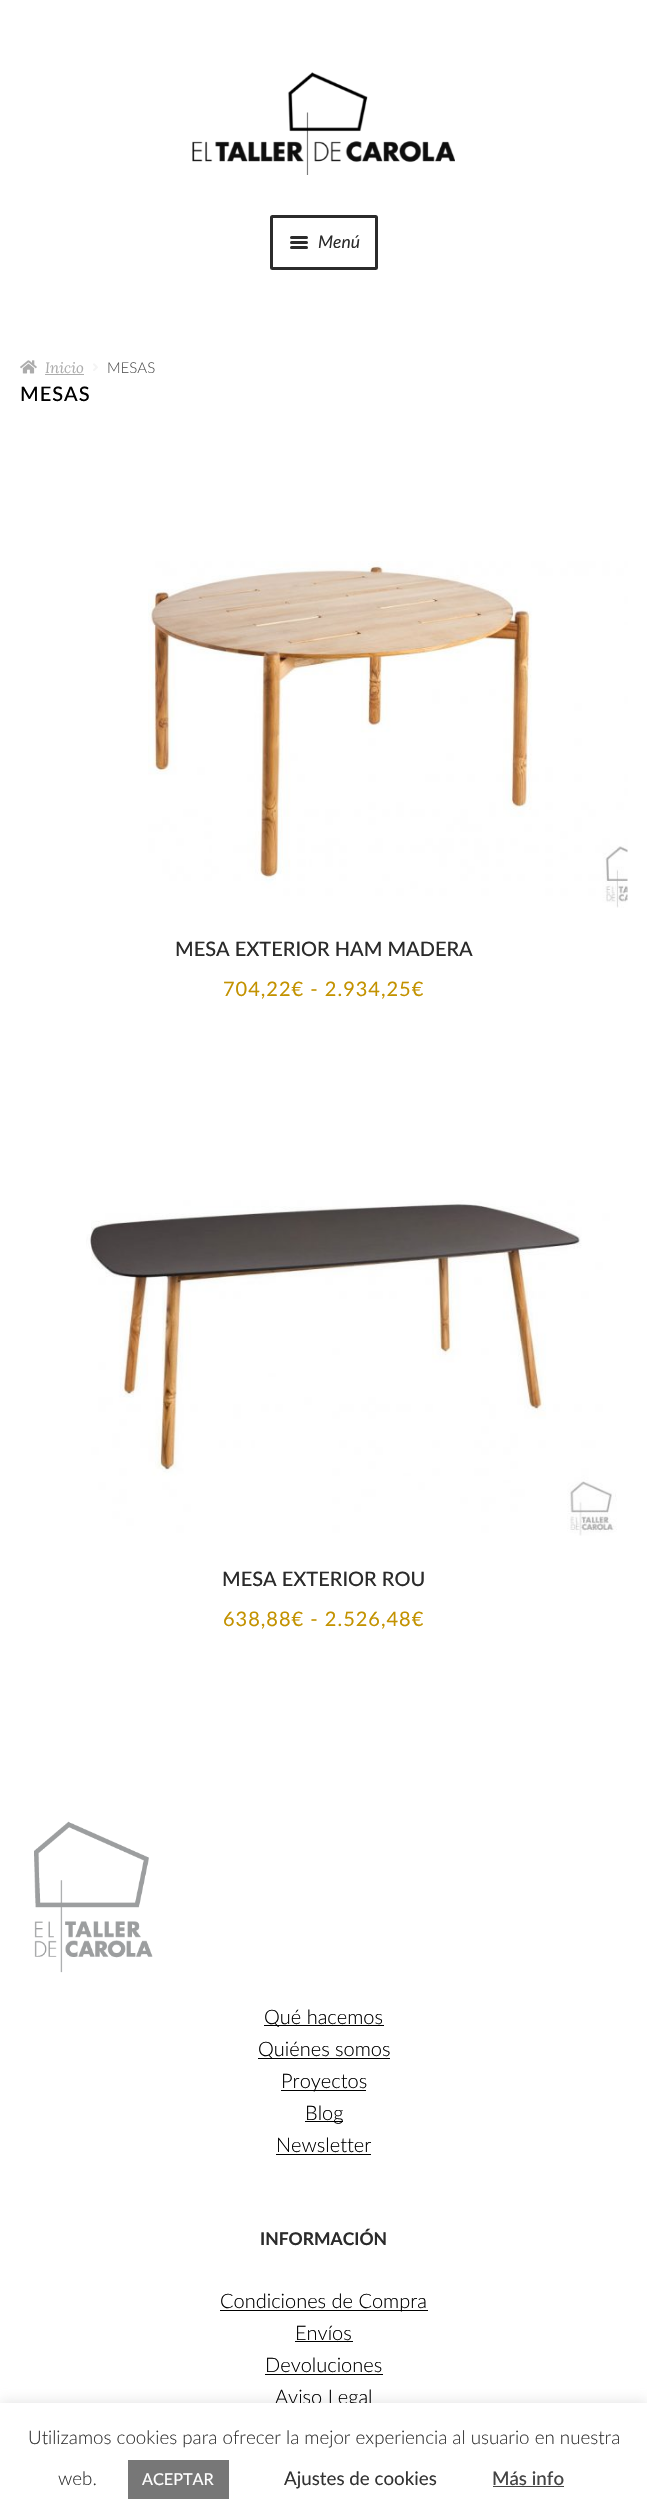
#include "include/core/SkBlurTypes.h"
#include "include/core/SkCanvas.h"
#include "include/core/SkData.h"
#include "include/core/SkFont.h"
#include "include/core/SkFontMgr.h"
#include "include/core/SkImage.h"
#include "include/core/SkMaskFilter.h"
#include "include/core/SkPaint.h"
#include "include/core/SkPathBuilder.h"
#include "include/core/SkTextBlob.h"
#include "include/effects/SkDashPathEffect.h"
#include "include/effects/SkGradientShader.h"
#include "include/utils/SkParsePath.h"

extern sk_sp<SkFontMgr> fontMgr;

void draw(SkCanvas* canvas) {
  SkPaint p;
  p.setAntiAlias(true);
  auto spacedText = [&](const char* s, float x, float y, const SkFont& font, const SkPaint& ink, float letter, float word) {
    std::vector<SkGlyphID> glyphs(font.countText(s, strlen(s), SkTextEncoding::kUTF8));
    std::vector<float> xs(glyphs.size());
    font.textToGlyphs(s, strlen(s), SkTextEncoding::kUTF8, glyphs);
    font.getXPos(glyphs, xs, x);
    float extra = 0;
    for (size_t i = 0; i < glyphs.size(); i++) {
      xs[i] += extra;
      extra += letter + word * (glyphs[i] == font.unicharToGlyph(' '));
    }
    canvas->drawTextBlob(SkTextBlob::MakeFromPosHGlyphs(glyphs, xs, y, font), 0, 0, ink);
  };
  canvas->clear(SK_ColorWHITE);
  canvas->drawImageRect(SkImages::DeferredFromEncodedData(SkData::MakeFromFileName("images/1.png")), SkRect::MakeLTRB(192, 72, 455, 175), SkSamplingOptions());
  p.setStyle(SkPaint::kStroke_Style);
  p.setStrokeWidth(3);
  p.setColor(SkColorSetRGB(43, 43, 43));
  canvas->drawRoundRect(SkRect::MakeLTRB(271.5f, 216.5f, 376.5f, 268.5f), 1, 1, p);
  p.setStyle(SkPaint::kFill_Style);
  canvas->drawRoundRect(SkRect::MakeLTRB(290, 236, 308, 239), 1.5f, 1.5f, p);
  canvas->drawRoundRect(SkRect::MakeLTRB(290, 241, 308, 244), 1.5f, 1.5f, p);
  canvas->drawRoundRect(SkRect::MakeLTRB(290, 246, 308, 249), 1.5f, 1.5f, p);
  canvas->drawImageRect(SkImages::DeferredFromEncodedData(SkData::MakeFromFileName("images/2.png")), SkRect::MakeLTRB(20, 360, 37, 374), SkSamplingOptions());
  p.setColor(SkColorSetRGB(173, 173, 173));
  canvas->drawRect(SkRect::MakeLTRB(45, 374, 84, 375), p);
  canvas->drawImageRect(SkImages::DeferredFromEncodedData(SkData::MakeFromFileName("images/3.png")), SkRect::MakeLTRB(93, 363, 98, 371), SkSamplingOptions());
  canvas->drawImageRect(SkImages::DeferredFromEncodedData(SkData::MakeFromFileName("images/4.png")), SkRect::MakeLTRB(148, 561, 628, 908), SkSamplingOptions());
  canvas->drawImageRect(SkImages::DeferredFromEncodedData(SkData::MakeFromFileName("images/5.png")), SkRect::MakeLTRB(86, 1200, 617, 1536), SkSamplingOptions());
  canvas->drawImageRect(SkImages::DeferredFromEncodedData(SkData::MakeFromFileName("images/6.png")), SkRect::MakeLTRB(34, 1821, 153, 1973), SkSamplingOptions());
  p.setColor(SK_ColorBLACK);
  canvas->drawRect(SkRect::MakeLTRB(264, 2025, 384, 2026), p);
  canvas->drawRect(SkRect::MakeLTRB(258, 2058, 390, 2059), p);
  canvas->drawRect(SkRect::MakeLTRB(281, 2090, 366, 2091), p);
  canvas->drawRect(SkRect::MakeLTRB(305, 2121, 343, 2122), p);
  canvas->drawRect(SkRect::MakeLTRB(276, 2154, 371, 2155), p);
  canvas->drawRect(SkRect::MakeLTRB(220, 2310, 428, 2311), p);
  canvas->drawRect(SkRect::MakeLTRB(295, 2341, 353, 2342), p);
  canvas->drawRect(SkRect::MakeLTRB(265, 2374, 383, 2375), p);
  p.setColor(SkColorSetARGB(77, 172, 171, 171));
  p.setMaskFilter(SkMaskFilter::MakeBlur(kNormal_SkBlurStyle, 6));
  canvas->drawRect(SkRect::MakeLTRB(0, 2401, 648, 2519), p);
  p.setMaskFilter(nullptr);
  SkFont font1(fontMgr->matchFamilyStyle("Lato", SkFontStyle::Italic()), 17.5f);
  font1.setSubpixel(true);
  p.setColor(SkColorSetRGB(43, 43, 43));
  canvas->drawString("Menú", 318, 248, font1, p);
  SkFont font2(fontMgr->matchFamilyStyle("Lora", SkFontStyle::Italic()), 15);
  font2.setSubpixel(true);
  p.setColor(SkColorSetRGB(173, 173, 173));
  canvas->drawString("Inicio", 45, 373, font2, p);
  SkFont font3(fontMgr->matchFamilyStyle("Lato", SkFontStyle(300, SkFontStyle::kNormal_Width, SkFontStyle::kUpright_Slant)), 15);
  font3.setSubpixel(true);
  p.setColor(SkColorSetRGB(85, 85, 85));
  canvas->drawString("MESAS", 107, 373, font3, p);
  SkFont font4(fontMgr->matchFamilyStyle("Lato", SkFontStyle(500, SkFontStyle::kNormal_Width, SkFontStyle::kUpright_Slant)), 20);
  font4.setSubpixel(true);
  p.setColor(SK_ColorBLACK);
  spacedText("MESAS", 20, 401, font4, p, 1, 0);
  p.setColor(SkColorSetRGB(43, 43, 43));
  canvas->drawString("MESA EXTERIOR HAM MADERA", 175, 956, font4, p);
  SkFont font5(fontMgr->matchFamilyStyle("Lato", SkFontStyle::Normal()), 20);
  font5.setSubpixel(true);
  p.setColor(SkColorSetRGB(195, 146, 0));
  spacedText("704,22€ - 2.934,25€", 223, 996, font5, p, 1, 0);
  p.setColor(SkColorSetRGB(43, 43, 43));
  canvas->drawString("MESA EXTERIOR ROU", 222, 1586, font4, p);
  p.setColor(SkColorSetRGB(195, 146, 0));
  spacedText("638,88€ - 2.526,48€", 223, 1626, font5, p, 1, 0);
  SkFont font6(fontMgr->matchFamilyStyle("Lato", SkFontStyle(300, SkFontStyle::kNormal_Width, SkFontStyle::kUpright_Slant)), 20);
  font6.setSubpixel(true);
  p.setColor(SK_ColorBLACK);
  canvas->drawString("Qué hacemos", 264, 2024, font6, p);
  canvas->drawString("Quiénes somos", 258, 2056, font6, p);
  canvas->drawString("Proyectos", 281, 2088, font6, p);
  canvas->drawString("Blog", 305, 2120, font6, p);
  canvas->drawString("Newsletter", 276, 2152, font6, p);
  SkFont font7(fontMgr->matchFamilyStyle("Lato", SkFontStyle::Bold()), 17.5f);
  font7.setSubpixel(true);
  p.setColor(SkColorSetRGB(43, 43, 43));
  canvas->drawString("INFORMACIÓN", 260, 2245, font7, p);
  p.setColor(SK_ColorBLACK);
  canvas->drawString("Condiciones de Compra", 220, 2308, font6, p);
  canvas->drawString("Envíos", 295, 2340, font6, p);
  canvas->drawString("Devoluciones", 265, 2372, font6, p);
  canvas->drawString("Aviso Legal", 275, 2404, font6, p);
  p.setColor(SK_ColorWHITE);
  canvas->drawRect(SkRect::MakeLTRB(0, 2403, 647, 2520), p);
  SkFont font8(fontMgr->matchFamilyStyle("Lato", SkFontStyle(300, SkFontStyle::kNormal_Width, SkFontStyle::kUpright_Slant)), 18.75f);
  font8.setSubpixel(true);
  p.setColor(SkColorSetRGB(51, 51, 51));
  canvas->drawString("Utilizamos cookies para ofrecer la mejor experiencia al usuario en nuestra", 28, 2444, font8, p);
  canvas->drawString("web.", 58, 2485, font8, p);
  p.setColor(SkColorSetRGB(119, 119, 119));
  canvas->drawRect(SkRect::MakeLTRB(128, 2460, 229, 2499), p);
  SkFont font9(fontMgr->matchFamilyStyle("Lato", SkFontStyle::Normal()), 16.25f);
  font9.setSubpixel(true);
  p.setColor(SK_ColorWHITE);
  canvas->drawString("ACEPTAR", 142, 2485, font9, p);
  SkFont font10(fontMgr->matchFamilyStyle("Lato", SkFontStyle::Normal()), 18.75f);
  font10.setSubpixel(true);
  p.setColor(SkColorSetRGB(51, 51, 51));
  canvas->drawString("Ajustes de cookies", 284, 2485, font10, p);
  SkFont font11(fontMgr->matchFamilyStyle("Lato", SkFontStyle(500, SkFontStyle::kNormal_Width, SkFontStyle::kUpright_Slant)), 18.75f);
  font11.setSubpixel(true);
  p.setColor(SkColorSetRGB(68, 68, 68));
  canvas->drawString("Más info", 492, 2485, font11, p);
  canvas->drawRect(SkRect::MakeLTRB(493, 2486, 564, 2487), p);
}
